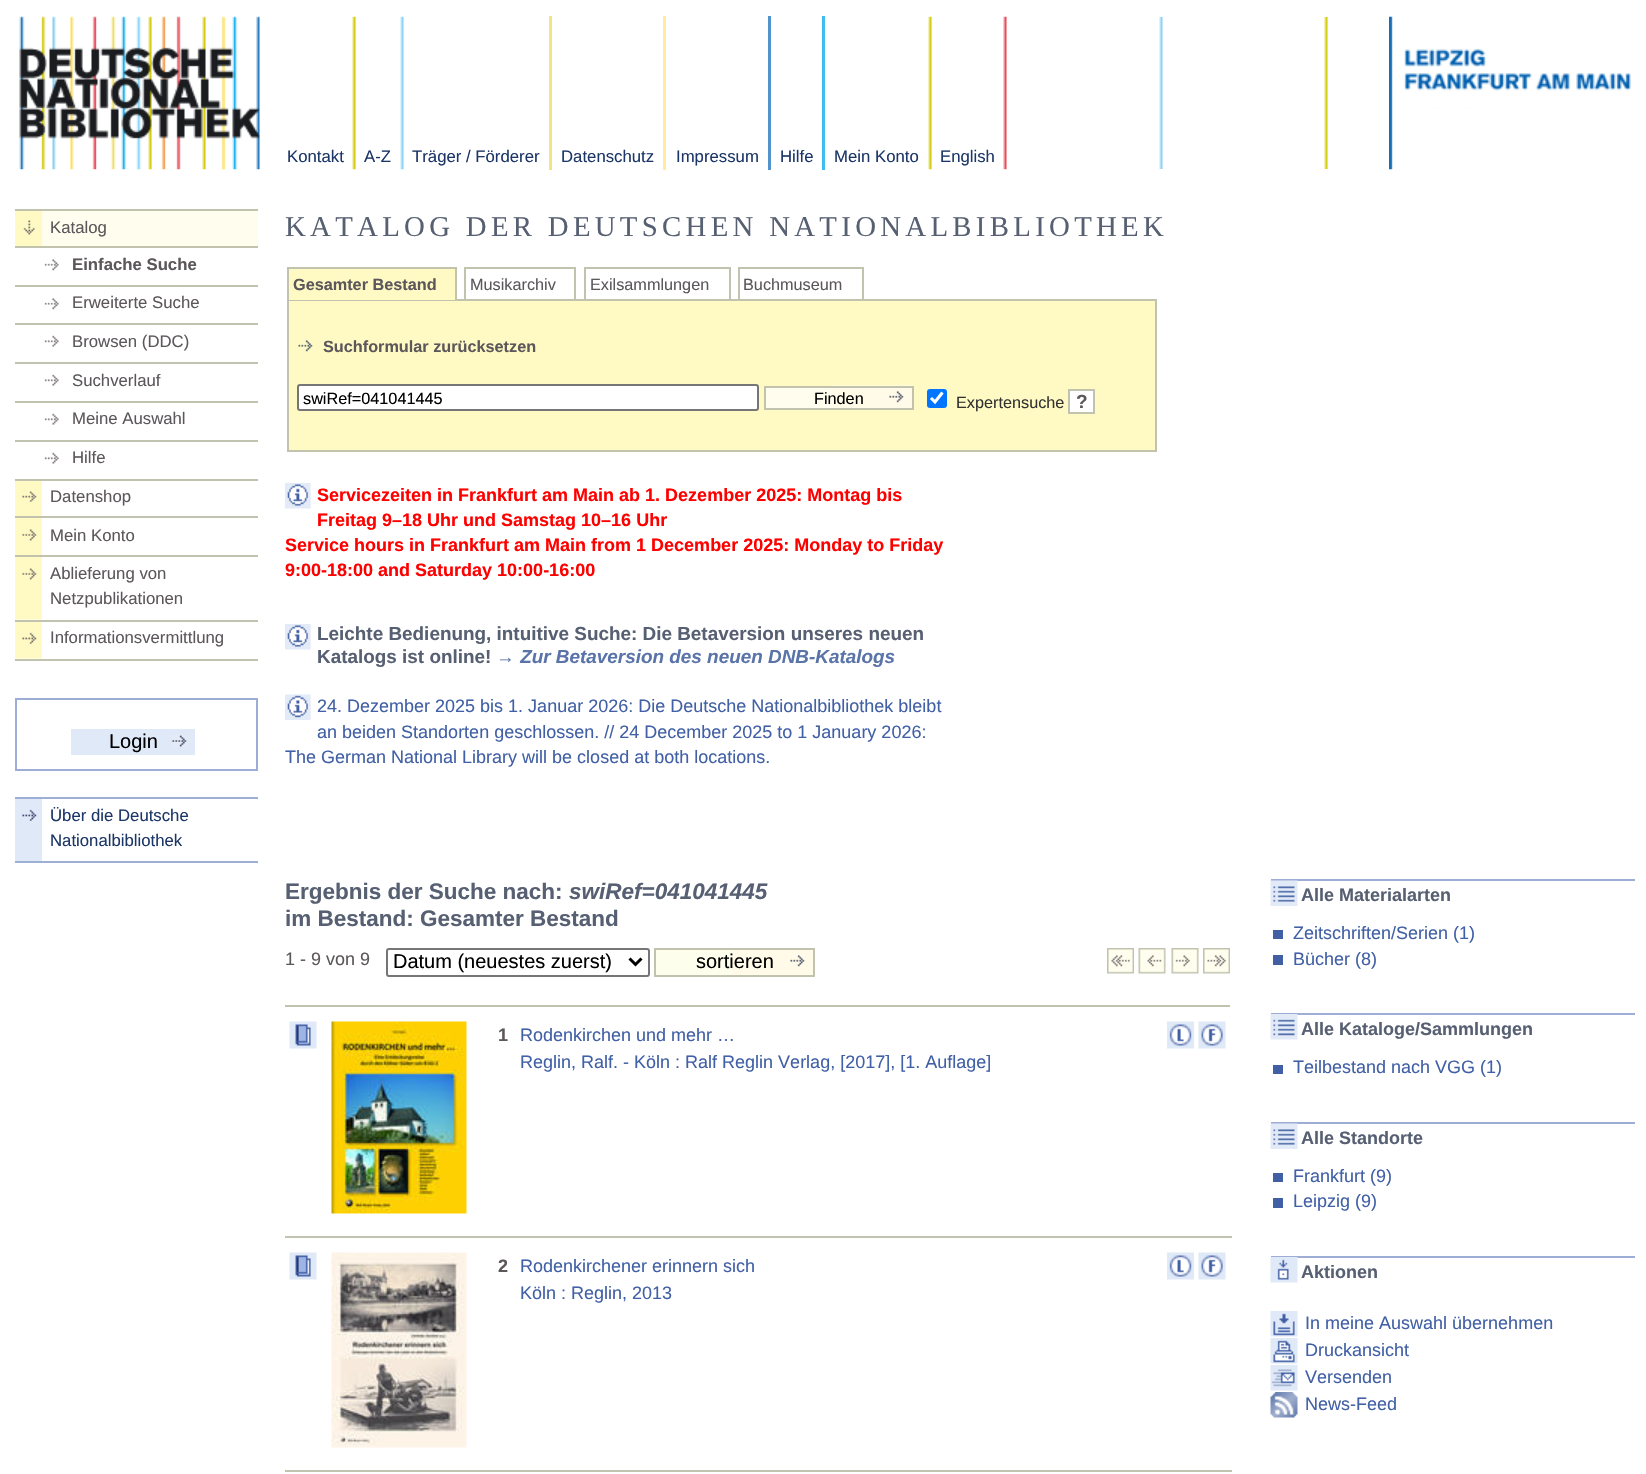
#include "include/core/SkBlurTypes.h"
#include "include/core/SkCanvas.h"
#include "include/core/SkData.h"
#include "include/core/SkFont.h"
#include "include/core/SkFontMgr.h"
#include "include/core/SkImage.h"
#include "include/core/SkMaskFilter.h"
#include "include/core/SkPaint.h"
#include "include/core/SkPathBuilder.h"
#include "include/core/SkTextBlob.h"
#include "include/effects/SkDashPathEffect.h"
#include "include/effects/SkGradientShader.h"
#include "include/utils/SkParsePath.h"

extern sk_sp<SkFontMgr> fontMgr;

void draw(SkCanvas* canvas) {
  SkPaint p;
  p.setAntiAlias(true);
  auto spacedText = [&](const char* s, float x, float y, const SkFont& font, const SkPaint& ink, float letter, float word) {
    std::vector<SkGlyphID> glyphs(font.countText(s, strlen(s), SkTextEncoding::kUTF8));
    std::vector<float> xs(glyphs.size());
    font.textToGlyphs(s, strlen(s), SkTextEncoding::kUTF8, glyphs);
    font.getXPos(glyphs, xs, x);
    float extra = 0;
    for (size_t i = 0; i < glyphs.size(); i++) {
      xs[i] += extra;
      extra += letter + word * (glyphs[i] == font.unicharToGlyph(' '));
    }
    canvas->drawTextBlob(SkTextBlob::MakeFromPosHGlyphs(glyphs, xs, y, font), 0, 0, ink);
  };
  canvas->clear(SK_ColorWHITE);
  canvas->drawImageRect(SkImages::DeferredFromEncodedData(SkData::MakeFromFileName("images/1.png")), SkRect::MakeLTRB(1159, 17, 1328, 169), SkSamplingOptions());
  canvas->drawImageRect(SkImages::DeferredFromEncodedData(SkData::MakeFromFileName("images/2.png")), SkRect::MakeLTRB(19, 16, 260, 170), SkSamplingOptions());
  canvas->drawImageRect(SkImages::DeferredFromEncodedData(SkData::MakeFromFileName("images/3.png")), SkRect::MakeLTRB(352, 16, 356, 170), SkSamplingOptions());
  canvas->drawImageRect(SkImages::DeferredFromEncodedData(SkData::MakeFromFileName("images/4.png")), SkRect::MakeLTRB(400, 16, 404, 170), SkSamplingOptions());
  p.setColor(SkColorSetRGB(240, 229, 132));
  canvas->drawRect(SkRect::MakeLTRB(549, 16, 552, 170), p);
  p.setColor(SkColorSetRGB(255, 236, 159));
  canvas->drawRect(SkRect::MakeLTRB(663, 16, 666, 170), p);
  p.setColor(SkColorSetRGB(81, 147, 202));
  canvas->drawRect(SkRect::MakeLTRB(768, 16, 771, 170), p);
  p.setColor(SkColorSetRGB(63, 188, 240));
  canvas->drawRect(SkRect::MakeLTRB(822, 16, 825, 170), p);
  canvas->drawImageRect(SkImages::DeferredFromEncodedData(SkData::MakeFromFileName("images/3.png")), SkRect::MakeLTRB(928, 16, 932, 170), SkSamplingOptions());
  canvas->drawImageRect(SkImages::DeferredFromEncodedData(SkData::MakeFromFileName("images/5.png")), SkRect::MakeLTRB(1003, 16, 1007, 170), SkSamplingOptions());
  canvas->drawImageRect(SkImages::DeferredFromEncodedData(SkData::MakeFromFileName("images/6.png")), SkRect::MakeLTRB(1389, 16, 1631, 170), SkSamplingOptions());
  p.setColor(SkColorSetRGB(193, 195, 174));
  canvas->drawRect(SkRect::MakeLTRB(15, 659, 258, 661), p);
  p.setColor(SkColorSetRGB(255, 253, 237));
  canvas->drawRect(SkRect::MakeLTRB(42, 211, 258, 246), p);
  canvas->drawImageRect(SkImages::DeferredFromEncodedData(SkData::MakeFromFileName("images/7.png")), SkRect::MakeLTRB(15, 211, 42, 246), SkSamplingOptions());
  p.setColor(SkColorSetRGB(193, 195, 174));
  canvas->drawRect(SkRect::MakeLTRB(15, 209, 258, 211), p);
  canvas->drawImageRect(SkImages::DeferredFromEncodedData(SkData::MakeFromFileName("images/8.png")), SkRect::MakeLTRB(23, 215, 35, 235), SkSamplingOptions());
  canvas->drawRect(SkRect::MakeLTRB(15, 246, 258, 248), p);
  canvas->drawImageRect(SkImages::DeferredFromEncodedData(SkData::MakeFromFileName("images/9.png")), SkRect::MakeLTRB(44, 259, 59, 271), SkSamplingOptions());
  canvas->drawRect(SkRect::MakeLTRB(15, 285, 258, 287), p);
  canvas->drawImageRect(SkImages::DeferredFromEncodedData(SkData::MakeFromFileName("images/9.png")), SkRect::MakeLTRB(44, 298, 59, 310), SkSamplingOptions());
  canvas->drawRect(SkRect::MakeLTRB(15, 323, 258, 325), p);
  canvas->drawImageRect(SkImages::DeferredFromEncodedData(SkData::MakeFromFileName("images/10.png")), SkRect::MakeLTRB(44, 335, 59, 347), SkSamplingOptions());
  canvas->drawRect(SkRect::MakeLTRB(15, 362, 258, 364), p);
  canvas->drawImageRect(SkImages::DeferredFromEncodedData(SkData::MakeFromFileName("images/10.png")), SkRect::MakeLTRB(44, 374, 59, 386), SkSamplingOptions());
  canvas->drawRect(SkRect::MakeLTRB(15, 401, 258, 403), p);
  canvas->drawImageRect(SkImages::DeferredFromEncodedData(SkData::MakeFromFileName("images/10.png")), SkRect::MakeLTRB(44, 413, 59, 425), SkSamplingOptions());
  canvas->drawRect(SkRect::MakeLTRB(15, 440, 258, 442), p);
  canvas->drawImageRect(SkImages::DeferredFromEncodedData(SkData::MakeFromFileName("images/10.png")), SkRect::MakeLTRB(44, 452, 59, 464), SkSamplingOptions());
  canvas->drawImageRect(SkImages::DeferredFromEncodedData(SkData::MakeFromFileName("images/11.png")), SkRect::MakeLTRB(15, 481, 42, 516), SkSamplingOptions());
  canvas->drawRect(SkRect::MakeLTRB(15, 479, 258, 481), p);
  canvas->drawImageRect(SkImages::DeferredFromEncodedData(SkData::MakeFromFileName("images/12.png")), SkRect::MakeLTRB(22, 487, 37, 502), SkSamplingOptions());
  canvas->drawImageRect(SkImages::DeferredFromEncodedData(SkData::MakeFromFileName("images/13.png")), SkRect::MakeLTRB(15, 518, 42, 555), SkSamplingOptions());
  canvas->drawRect(SkRect::MakeLTRB(15, 516, 258, 518), p);
  canvas->drawImageRect(SkImages::DeferredFromEncodedData(SkData::MakeFromFileName("images/14.png")), SkRect::MakeLTRB(22, 524, 37, 541), SkSamplingOptions());
  canvas->drawImageRect(SkImages::DeferredFromEncodedData(SkData::MakeFromFileName("images/15.png")), SkRect::MakeLTRB(15, 557, 42, 620), SkSamplingOptions());
  canvas->drawRect(SkRect::MakeLTRB(15, 555, 258, 557), p);
  canvas->drawImageRect(SkImages::DeferredFromEncodedData(SkData::MakeFromFileName("images/14.png")), SkRect::MakeLTRB(22, 563, 37, 580), SkSamplingOptions());
  canvas->drawImageRect(SkImages::DeferredFromEncodedData(SkData::MakeFromFileName("images/16.png")), SkRect::MakeLTRB(15, 622, 42, 659), SkSamplingOptions());
  canvas->drawRect(SkRect::MakeLTRB(15, 620, 258, 622), p);
  canvas->drawImageRect(SkImages::DeferredFromEncodedData(SkData::MakeFromFileName("images/17.png")), SkRect::MakeLTRB(22, 628, 37, 644), SkSamplingOptions());
  p.setStyle(SkPaint::kStroke_Style);
  p.setStrokeWidth(2);
  p.setColor(SkColorSetRGB(158, 173, 214));
  canvas->drawRect(SkRect::MakeLTRB(16, 699, 257, 770), p);
  p.setStyle(SkPaint::kFill_Style);
  p.setColor(SkColorSetRGB(224, 233, 248));
  canvas->drawRect(SkRect::MakeLTRB(71, 729, 195, 755), p);
  canvas->drawImageRect(SkImages::DeferredFromEncodedData(SkData::MakeFromFileName("images/18.png")), SkRect::MakeLTRB(172, 735, 187, 747), SkSamplingOptions());
  p.setColor(SkColorSetRGB(157, 175, 213));
  canvas->drawRect(SkRect::MakeLTRB(15, 861, 258, 863), p);
  canvas->drawImageRect(SkImages::DeferredFromEncodedData(SkData::MakeFromFileName("images/19.png")), SkRect::MakeLTRB(15, 799, 42, 861), SkSamplingOptions());
  canvas->drawRect(SkRect::MakeLTRB(15, 797, 258, 799), p);
  canvas->drawImageRect(SkImages::DeferredFromEncodedData(SkData::MakeFromFileName("images/20.png")), SkRect::MakeLTRB(22, 805, 37, 821), SkSamplingOptions());
  p.setStyle(SkPaint::kStroke_Style);
  p.setColor(SkColorSetRGB(193, 195, 174));
  canvas->drawRect(SkRect::MakeLTRB(465, 268, 575, 313), p);
  canvas->drawRect(SkRect::MakeLTRB(585, 268, 730, 313), p);
  canvas->drawRect(SkRect::MakeLTRB(739, 268, 863, 313), p);
  p.setStyle(SkPaint::kFill_Style);
  p.setColor(SkColorSetRGB(255, 250, 195));
  canvas->drawRect(SkRect::MakeLTRB(288, 300, 1156, 451), p);
  p.setStyle(SkPaint::kStroke_Style);
  p.setColor(SkColorSetRGB(193, 195, 174));
  canvas->drawRect(SkRect::MakeLTRB(288, 300, 1156, 451), p);
  p.setStyle(SkPaint::kFill_Style);
  p.setColor(SkColorSetRGB(255, 250, 195));
  canvas->drawRect(SkRect::MakeLTRB(289, 269, 455, 300), p);
  p.setColor(SkColorSetRGB(193, 195, 174));
  canvas->drawRect(SkRect::MakeLTRB(287, 267, 456, 269), p);
  canvas->drawRect(SkRect::MakeLTRB(455, 267, 457, 300), p);
  canvas->drawRect(SkRect::MakeLTRB(287, 267, 289, 300), p);
  canvas->drawImageRect(SkImages::DeferredFromEncodedData(SkData::MakeFromFileName("images/21.png")), SkRect::MakeLTRB(298, 340, 313, 352), SkSamplingOptions());
  p.setColor(SK_ColorWHITE);
  canvas->drawRoundRect(SkRect::MakeLTRB(298, 385, 758, 410), 2, 2, p);
  p.setStyle(SkPaint::kStroke_Style);
  p.setColor(SkColorSetRGB(118, 118, 118));
  canvas->drawRoundRect(SkRect::MakeLTRB(298, 385, 758, 410), 2, 2, p);
  p.setStyle(SkPaint::kFill_Style);
  p.setColor(SkColorSetRGB(255, 253, 237));
  canvas->drawRect(SkRect::MakeLTRB(766, 388, 831, 408), p);
  canvas->drawImageRect(SkImages::DeferredFromEncodedData(SkData::MakeFromFileName("images/22.png")), SkRect::MakeLTRB(831, 385, 912, 408), SkSamplingOptions());
  p.setStyle(SkPaint::kStroke_Style);
  p.setColor(SkColorSetRGB(193, 195, 174));
  canvas->drawRect(SkRect::MakeLTRB(765, 387, 913, 409), p);
  p.setStyle(SkPaint::kFill_Style);
  p.setColor(SkColorSetRGB(0, 117, 255));
  canvas->drawRoundRect(SkRect::MakeLTRB(927, 389, 947, 408), 3, 3, p);
  p.setStyle(SkPaint::kStroke_Style);
  p.setStrokeWidth(3.1f);
  p.setColor(SK_ColorWHITE);
  canvas->drawPath(SkPathBuilder().moveTo(931, 398).lineTo(935, 402).lineTo(942.5f, 392.5f).detach(), p);
  p.setStyle(SkPaint::kFill_Style);
  canvas->drawRect(SkRect::MakeLTRB(1069, 390, 1094, 413), p);
  p.setStyle(SkPaint::kStroke_Style);
  p.setStrokeWidth(2);
  p.setColor(SkColorSetRGB(193, 195, 174));
  canvas->drawRect(SkRect::MakeLTRB(1069, 390, 1094, 413), p);
  canvas->drawImageRect(SkImages::DeferredFromEncodedData(SkData::MakeFromFileName("images/23.png")), SkRect::MakeLTRB(285, 483, 311, 509), SkSamplingOptions());
  canvas->drawImageRect(SkImages::DeferredFromEncodedData(SkData::MakeFromFileName("images/23.png")), SkRect::MakeLTRB(285, 624, 311, 650), SkSamplingOptions());
  canvas->drawImageRect(SkImages::DeferredFromEncodedData(SkData::MakeFromFileName("images/24.png")), SkRect::MakeLTRB(285, 694, 311, 720), SkSamplingOptions());
  p.setColor(SkColorSetRGB(118, 118, 118));
  canvas->drawRoundRect(SkRect::MakeLTRB(387, 949, 649, 976), 2, 2, p);
  p.setStrokeWidth(3);
  p.setColor(SK_ColorBLACK);
  canvas->drawPath(SkPathBuilder().moveTo(629.5f, 958.5f).lineTo(635.5f, 964.5f).lineTo(641.5f, 958.5f).detach(), p);
  p.setStyle(SkPaint::kFill_Style);
  p.setColor(SkColorSetRGB(254, 254, 237));
  canvas->drawRect(SkRect::MakeLTRB(656, 950, 732, 975), p);
  canvas->drawImageRect(SkImages::DeferredFromEncodedData(SkData::MakeFromFileName("images/25.png")), SkRect::MakeLTRB(732, 950, 813, 975), SkSamplingOptions());
  p.setStyle(SkPaint::kStroke_Style);
  p.setStrokeWidth(2);
  p.setColor(SkColorSetRGB(193, 195, 174));
  canvas->drawRect(SkRect::MakeLTRB(655, 949, 814, 976), p);
  canvas->drawImageRect(SkImages::DeferredFromEncodedData(SkData::MakeFromFileName("images/26.png")), SkRect::MakeLTRB(1107, 948, 1134, 974), SkSamplingOptions());
  canvas->drawImageRect(SkImages::DeferredFromEncodedData(SkData::MakeFromFileName("images/27.png")), SkRect::MakeLTRB(1138, 948, 1166, 974), SkSamplingOptions());
  canvas->drawImageRect(SkImages::DeferredFromEncodedData(SkData::MakeFromFileName("images/28.png")), SkRect::MakeLTRB(1171, 948, 1199, 974), SkSamplingOptions());
  canvas->drawImageRect(SkImages::DeferredFromEncodedData(SkData::MakeFromFileName("images/29.png")), SkRect::MakeLTRB(1203, 948, 1230, 974), SkSamplingOptions());
  p.setStyle(SkPaint::kFill_Style);
  canvas->drawRect(SkRect::MakeLTRB(285, 1005, 1230, 1007), p);
  canvas->drawRect(SkRect::MakeLTRB(285, 1236, 1232, 1238), p);
  canvas->drawImageRect(SkImages::DeferredFromEncodedData(SkData::MakeFromFileName("images/30.png")), SkRect::MakeLTRB(289, 1021, 317, 1049), SkSamplingOptions());
  canvas->drawImageRect(SkImages::DeferredFromEncodedData(SkData::MakeFromFileName("images/31.png")), SkRect::MakeLTRB(331, 1021, 467, 1214), SkSamplingOptions());
  canvas->drawImageRect(SkImages::DeferredFromEncodedData(SkData::MakeFromFileName("images/32.png")), SkRect::MakeLTRB(1167, 1021, 1194, 1049), SkSamplingOptions());
  canvas->drawImageRect(SkImages::DeferredFromEncodedData(SkData::MakeFromFileName("images/33.png")), SkRect::MakeLTRB(1198, 1021, 1226, 1049), SkSamplingOptions());
  canvas->drawRect(SkRect::MakeLTRB(285, 1470, 1232, 1472), p);
  canvas->drawImageRect(SkImages::DeferredFromEncodedData(SkData::MakeFromFileName("images/30.png")), SkRect::MakeLTRB(289, 1252, 317, 1280), SkSamplingOptions());
  canvas->drawImageRect(SkImages::DeferredFromEncodedData(SkData::MakeFromFileName("images/34.png")), SkRect::MakeLTRB(331, 1252, 467, 1448), SkSamplingOptions());
  canvas->drawImageRect(SkImages::DeferredFromEncodedData(SkData::MakeFromFileName("images/32.png")), SkRect::MakeLTRB(1167, 1252, 1194, 1280), SkSamplingOptions());
  canvas->drawImageRect(SkImages::DeferredFromEncodedData(SkData::MakeFromFileName("images/33.png")), SkRect::MakeLTRB(1198, 1252, 1226, 1280), SkSamplingOptions());
  p.setColor(SkColorSetRGB(158, 173, 214));
  canvas->drawRect(SkRect::MakeLTRB(1271, 879, 1635, 881), p);
  canvas->drawImageRect(SkImages::DeferredFromEncodedData(SkData::MakeFromFileName("images/35.png")), SkRect::MakeLTRB(1270, 880, 1298, 906), SkSamplingOptions());
  p.setColor(SkColorSetRGB(65, 95, 165));
  canvas->drawRect(SkRect::MakeLTRB(1273, 930, 1283, 939), p);
  canvas->drawRect(SkRect::MakeLTRB(1273, 955, 1283, 965), p);
  p.setColor(SkColorSetRGB(158, 173, 214));
  canvas->drawRect(SkRect::MakeLTRB(1271, 1013, 1635, 1015), p);
  canvas->drawImageRect(SkImages::DeferredFromEncodedData(SkData::MakeFromFileName("images/36.png")), SkRect::MakeLTRB(1270, 1014, 1298, 1040), SkSamplingOptions());
  p.setColor(SkColorSetRGB(65, 95, 165));
  canvas->drawRect(SkRect::MakeLTRB(1273, 1065, 1283, 1074), p);
  p.setColor(SkColorSetRGB(158, 173, 214));
  canvas->drawRect(SkRect::MakeLTRB(1271, 1122, 1635, 1124), p);
  canvas->drawImageRect(SkImages::DeferredFromEncodedData(SkData::MakeFromFileName("images/35.png")), SkRect::MakeLTRB(1270, 1123, 1298, 1149), SkSamplingOptions());
  p.setColor(SkColorSetRGB(65, 95, 165));
  canvas->drawRect(SkRect::MakeLTRB(1273, 1173, 1283, 1182), p);
  canvas->drawRect(SkRect::MakeLTRB(1273, 1198, 1283, 1208), p);
  p.setColor(SkColorSetRGB(158, 173, 214));
  canvas->drawRect(SkRect::MakeLTRB(1271, 1256, 1635, 1258), p);
  canvas->drawImageRect(SkImages::DeferredFromEncodedData(SkData::MakeFromFileName("images/37.png")), SkRect::MakeLTRB(1270, 1257, 1298, 1283), SkSamplingOptions());
  canvas->drawImageRect(SkImages::DeferredFromEncodedData(SkData::MakeFromFileName("images/38.png")), SkRect::MakeLTRB(1270, 1311, 1298, 1337), SkSamplingOptions());
  canvas->drawImageRect(SkImages::DeferredFromEncodedData(SkData::MakeFromFileName("images/39.png")), SkRect::MakeLTRB(1270, 1338, 1298, 1364), SkSamplingOptions());
  canvas->drawImageRect(SkImages::DeferredFromEncodedData(SkData::MakeFromFileName("images/40.png")), SkRect::MakeLTRB(1270, 1365, 1298, 1391), SkSamplingOptions());
  canvas->drawImageRect(SkImages::DeferredFromEncodedData(SkData::MakeFromFileName("images/41.png")), SkRect::MakeLTRB(1270, 1392, 1298, 1418), SkSamplingOptions());
  SkFont font1(fontMgr->matchFamilyStyle("Liberation Sans", SkFontStyle::Normal()), 16.75f);
  font1.setSubpixel(true);
  p.setColor(SkColorSetRGB(28, 54, 103));
  canvas->drawString("Kontakt", 287, 162, font1, p);
  canvas->drawString("A-Z", 364, 162, font1, p);
  canvas->drawString("Träger / Förderer", 412, 162, font1, p);
  canvas->drawString("Datenschutz", 561, 162, font1, p);
  canvas->drawString("Impressum", 676, 162, font1, p);
  canvas->drawString("Hilfe", 780, 162, font1, p);
  canvas->drawString("Mein Konto", 834, 162, font1, p);
  canvas->drawString("English", 940, 162, font1, p);
  p.setColor(SkColorSetRGB(92, 87, 91));
  canvas->drawString("Katalog", 50, 233, font1, p);
  SkFont font2(fontMgr->matchFamilyStyle("Liberation Sans", SkFontStyle::Bold()), 16.75f);
  font2.setSubpixel(true);
  canvas->drawString("Einfache Suche", 72, 270, font2, p);
  canvas->drawString("Erweiterte Suche", 72, 308, font1, p);
  canvas->drawString("Browsen (DDC)", 72, 347, font1, p);
  canvas->drawString("Suchverlauf", 72, 386, font1, p);
  canvas->drawString("Meine Auswahl", 72, 424, font1, p);
  canvas->drawString("Hilfe", 72, 463, font1, p);
  canvas->drawString("Datenshop", 50, 502, font1, p);
  canvas->drawString("Mein Konto", 50, 541, font1, p);
  canvas->drawString("Ablieferung von", 50, 579, font1, p);
  canvas->drawString("Netzpublikationen", 50, 604, font1, p);
  canvas->drawString("Informationsvermittlung", 50, 643, font1, p);
  SkFont font3(fontMgr->matchFamilyStyle("Liberation Sans", SkFontStyle::Normal()), 20);
  font3.setSubpixel(true);
  p.setColor(SK_ColorBLACK);
  canvas->drawString("Login", 109, 748, font3, p);
  p.setColor(SkColorSetRGB(28, 54, 103));
  canvas->drawString("Über die Deutsche", 50, 821, font1, p);
  canvas->drawString("Nationalbibliothek", 50, 846, font1, p);
  SkFont font4(fontMgr->matchFamilyStyle("Liberation Serif", SkFontStyle::Normal()), 28.8f);
  font4.setSubpixel(true);
  p.setColor(SkColorSetRGB(87, 96, 114));
  spacedText("KATALOG DER DEUTSCHEN NATIONALBIBLIOTHEK", 285, 236, font4, p, 4.3f, 0);
  SkFont font5(fontMgr->matchFamilyStyle("Liberation Sans", SkFontStyle::Bold()), 16.25f);
  font5.setSubpixel(true);
  p.setColor(SkColorSetRGB(92, 87, 91));
  canvas->drawString("Gesamter Bestand", 293, 290, font5, p);
  SkFont font6(fontMgr->matchFamilyStyle("Liberation Sans", SkFontStyle::Normal()), 16.25f);
  font6.setSubpixel(true);
  canvas->drawString("Musikarchiv", 470, 290, font6, p);
  canvas->drawString("Exilsammlungen", 590, 290, font6, p);
  canvas->drawString("Buchmuseum", 743, 290, font6, p);
  canvas->drawString("Suchformular zurücksetzen", 323, 352, font5, p);
  p.setColor(SK_ColorBLACK);
  canvas->drawString("swiRef=041041445", 303, 404, font6, p);
  canvas->drawString("Finden", 814, 404, font6, p);
  p.setColor(SkColorSetRGB(51, 51, 51));
  canvas->drawString("Expertensuche", 956, 408, font6, p);
  SkFont font7(fontMgr->matchFamilyStyle("Liberation Sans", SkFontStyle::Bold()), 19);
  font7.setSubpixel(true);
  p.setColor(SkColorSetRGB(92, 87, 91));
  canvas->drawString("?", 1076, 408, font7, p);
  SkFont font8(fontMgr->matchFamilyStyle("Liberation Sans", SkFontStyle::Bold()), 18);
  font8.setSubpixel(true);
  p.setColor(SkColorSetRGB(255, 0, 0));
  canvas->drawString("Servicezeiten in Frankfurt am Main ab 1. Dezember 2025: Montag bis", 317, 501, font8, p);
  canvas->drawString("Freitag 9–18 Uhr und Samstag 10–16 Uhr", 317, 526, font8, p);
  canvas->drawString("Service hours in Frankfurt am Main from 1 December 2025: Monday to Friday", 285, 551, font8, p);
  canvas->drawString("9:00-18:00 and Saturday 10:00-16:00", 285, 576, font8, p);
  SkFont font9(fontMgr->matchFamilyStyle("Liberation Sans", SkFontStyle::Bold()), 18.9f);
  font9.setSubpixel(true);
  p.setColor(SkColorSetRGB(87, 96, 114));
  canvas->drawString("Leichte Bedienung, intuitive Suche: Die Betaversion unseres neuen", 317, 640, font9, p);
  canvas->drawString("Katalogs ist online!", 317, 663, font9, p);
  SkFont font10(fontMgr->matchFamilyStyle("Liberation Sans", SkFontStyle::BoldItalic()), 18.9f);
  font10.setSubpixel(true);
  p.setColor(SkColorSetRGB(90, 116, 169));
  canvas->drawString("→ Zur Betaversion des neuen DNB-Katalogs", 496, 663, font10, p);
  SkFont font11(fontMgr->matchFamilyStyle("Liberation Sans", SkFontStyle::Normal()), 18);
  font11.setSubpixel(true);
  p.setColor(SkColorSetRGB(65, 96, 165));
  canvas->drawString("24. Dezember 2025 bis 1. Januar 2026: Die Deutsche Nationalbibliothek bleibt", 317, 712, font11, p);
  canvas->drawString("an beiden Standorten geschlossen. // 24 December 2025 to 1 January 2026:", 317, 738, font11, p);
  canvas->drawString("The German National Library will be closed at both locations.", 285, 763, font11, p);
  SkFont font12(fontMgr->matchFamilyStyle("Liberation Sans", SkFontStyle::Bold()), 22.5f);
  font12.setSubpixel(true);
  p.setColor(SkColorSetRGB(87, 96, 114));
  canvas->drawString("Ergebnis der Suche nach:", 285, 899, font12, p);
  SkFont font13(fontMgr->matchFamilyStyle("Liberation Sans", SkFontStyle::BoldItalic()), 22.5f);
  font13.setSubpixel(true);
  canvas->drawString("swiRef=041041445", 569, 899, font13, p);
  canvas->drawString("im Bestand: Gesamter Bestand", 285, 926, font12, p);
  p.setColor(SkColorSetRGB(92, 87, 91));
  canvas->drawString("1 - 9 von 9", 285, 965, font11, p);
  p.setColor(SK_ColorBLACK);
  canvas->drawString("Datum (neuestes zuerst)", 393, 968, font3, p);
  canvas->drawString("sortieren", 696, 968, font3, p);
  p.setColor(SkColorSetRGB(92, 87, 91));
  canvas->drawString("1", 498, 1041, font8, p);
  p.setColor(SkColorSetRGB(65, 96, 165));
  canvas->drawString("Rodenkirchen und mehr …", 520, 1041, font11, p);
  canvas->drawString("Reglin, Ralf. - Köln : Ralf Reglin Verlag, [2017], [1. Auflage]", 520, 1068, font11, p);
  p.setColor(SkColorSetRGB(92, 87, 91));
  canvas->drawString("2", 498, 1272, font8, p);
  p.setColor(SkColorSetRGB(65, 96, 165));
  canvas->drawString("Rodenkirchener erinnern sich", 520, 1272, font11, p);
  canvas->drawString("Köln : Reglin, 2013", 520, 1299, font11, p);
  p.setColor(SkColorSetRGB(87, 96, 114));
  canvas->drawString("Alle Materialarten", 1301, 901, font8, p);
  p.setColor(SkColorSetRGB(65, 96, 165));
  canvas->drawString("Zeitschriften/Serien (1)", 1293, 939, font11, p);
  canvas->drawString("Bücher (8)", 1293, 965, font11, p);
  p.setColor(SkColorSetRGB(87, 96, 114));
  canvas->drawString("Alle Kataloge/Sammlungen", 1301, 1035, font8, p);
  p.setColor(SkColorSetRGB(65, 96, 165));
  canvas->drawString("Teilbestand nach VGG (1)", 1293, 1073, font11, p);
  p.setColor(SkColorSetRGB(87, 96, 114));
  canvas->drawString("Alle Standorte", 1301, 1144, font8, p);
  p.setColor(SkColorSetRGB(65, 96, 165));
  canvas->drawString("Frankfurt (9)", 1293, 1182, font11, p);
  canvas->drawString("Leipzig (9)", 1293, 1207, font11, p);
  p.setColor(SkColorSetRGB(87, 96, 114));
  canvas->drawString("Aktionen", 1301, 1278, font8, p);
  p.setColor(SkColorSetRGB(65, 96, 165));
  canvas->drawString("In meine Auswahl übernehmen", 1305, 1329, font11, p);
  canvas->drawString("Druckansicht", 1305, 1356, font11, p);
  canvas->drawString("Versenden", 1305, 1383, font11, p);
  canvas->drawString("News-Feed", 1305, 1410, font11, p);
}
